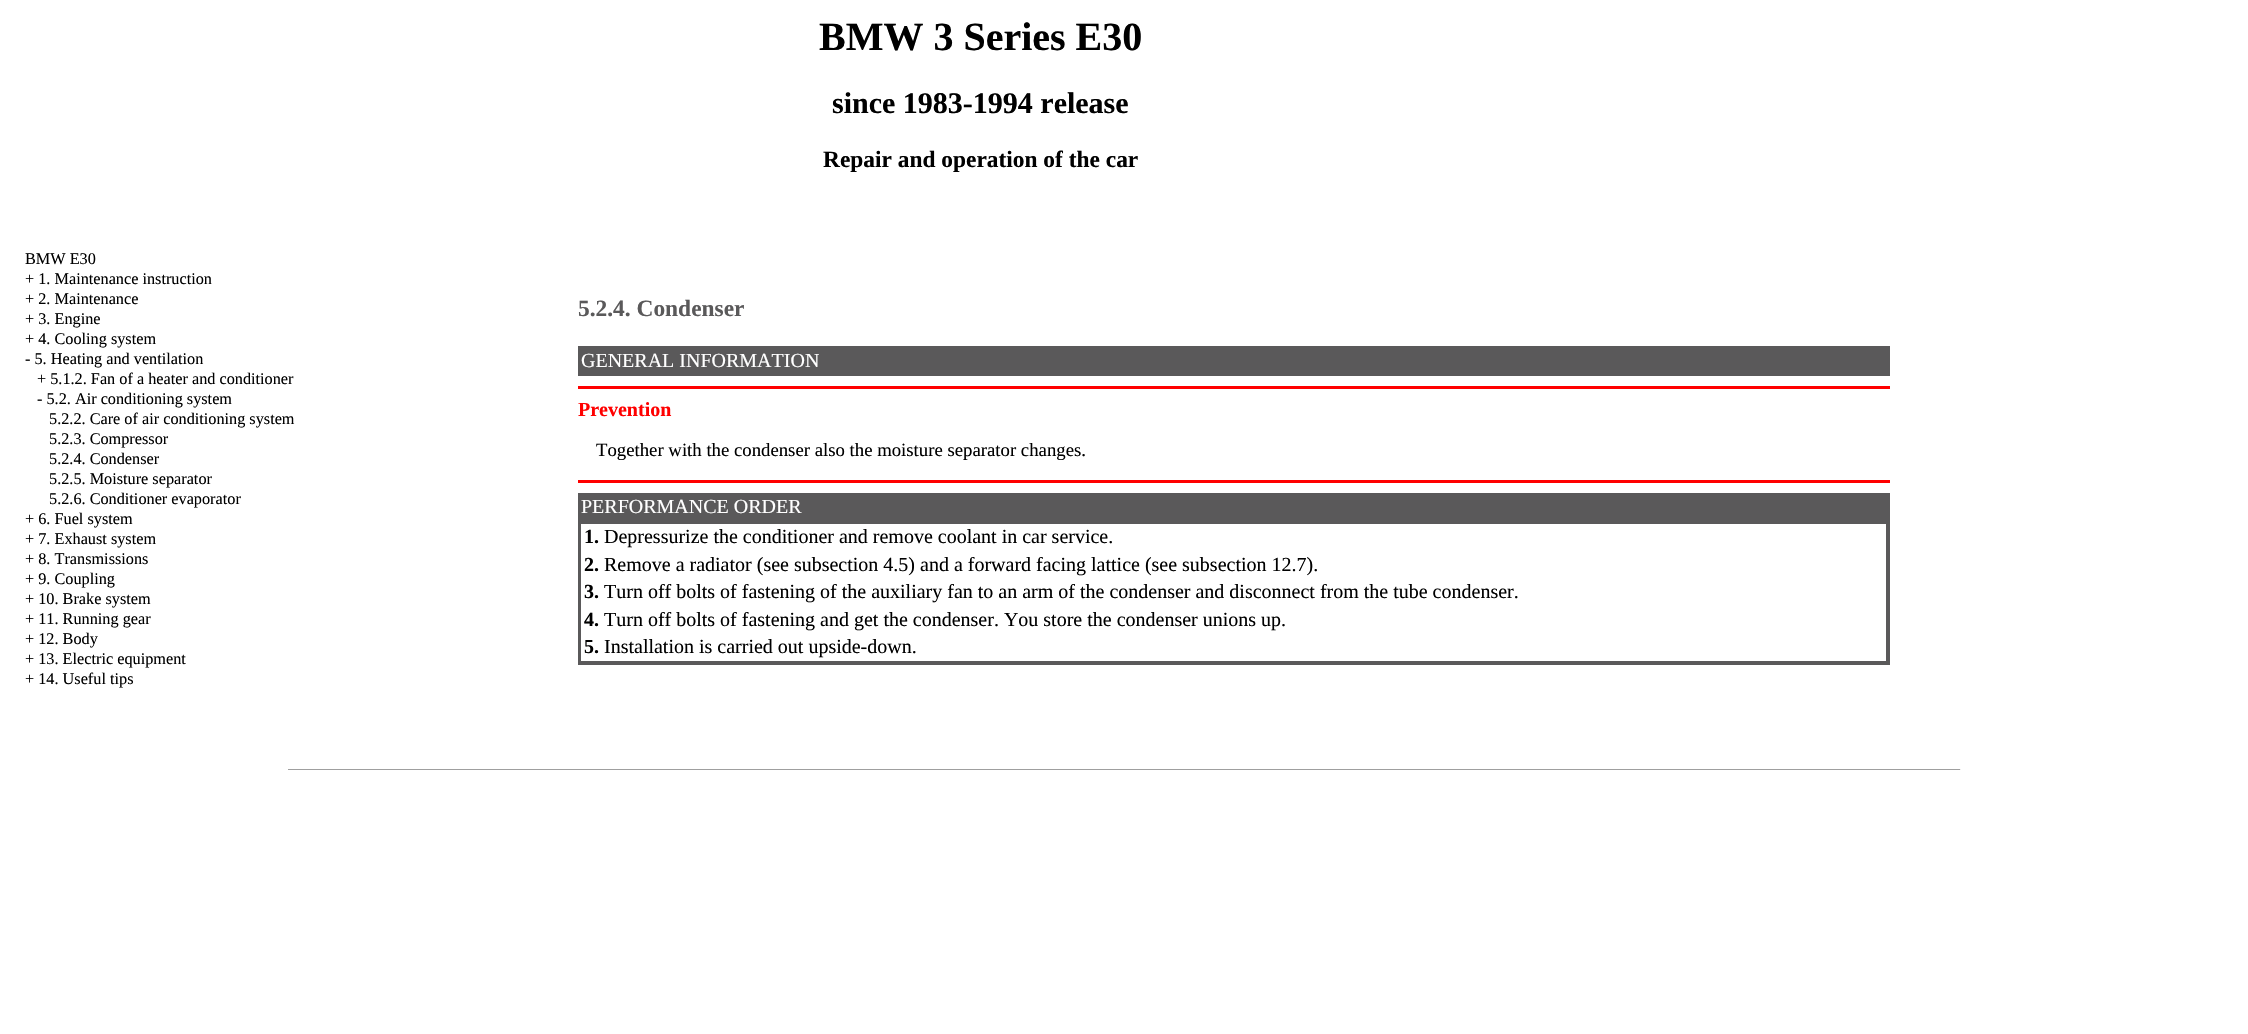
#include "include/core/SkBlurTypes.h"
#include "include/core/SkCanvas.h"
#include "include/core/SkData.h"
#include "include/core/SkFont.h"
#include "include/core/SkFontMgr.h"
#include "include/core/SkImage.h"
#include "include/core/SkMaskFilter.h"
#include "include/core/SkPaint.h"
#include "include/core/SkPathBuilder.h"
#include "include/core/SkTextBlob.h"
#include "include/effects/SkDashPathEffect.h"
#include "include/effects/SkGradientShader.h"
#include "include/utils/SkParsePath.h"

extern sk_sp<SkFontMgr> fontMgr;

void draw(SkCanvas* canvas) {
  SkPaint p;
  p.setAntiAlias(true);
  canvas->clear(SK_ColorWHITE);
  p.setColor(SkColorSetRGB(90, 89, 90));
  canvas->drawRect(SkRect::MakeLTRB(578, 346, 1890, 376), p);
  p.setColor(SkColorSetRGB(255, 0, 0));
  canvas->drawRect(SkRect::MakeLTRB(578, 386, 1890, 389), p);
  canvas->drawRect(SkRect::MakeLTRB(578, 480, 1890, 483), p);
  p.setColor(SkColorSetRGB(90, 89, 90));
  canvas->drawRect(SkRect::MakeLTRB(578, 493, 1890, 665), p);
  p.setColor(SK_ColorWHITE);
  canvas->drawRect(SkRect::MakeLTRB(581, 524, 1886, 661), p);
  p.setColor(SkColorSetRGB(159, 159, 159));
  canvas->drawRect(SkRect::MakeLTRB(288, 769, 1961, 770), p);
  p.setColor(SkColorSetRGB(238, 238, 238));
  canvas->drawRect(SkRect::MakeLTRB(1960, 769, 1961, 770), p);
  SkFont font1(fontMgr->matchFamilyStyle("Liberation Serif", SkFontStyle::Bold()), 40);
  font1.setSubpixel(true);
  p.setColor(SK_ColorBLACK);
  canvas->drawString("BMW 3 Series E30", 819, 50, font1, p);
  SkFont font2(fontMgr->matchFamilyStyle("Liberation Serif", SkFontStyle::Bold()), 30);
  font2.setSubpixel(true);
  canvas->drawString("since 1983-1994 release", 832, 113, font2, p);
  SkFont font3(fontMgr->matchFamilyStyle("Liberation Serif", SkFontStyle::Bold()), 23.4f);
  font3.setSubpixel(true);
  canvas->drawString("Repair and operation of the car", 823, 167, font3, p);
  SkFont font4(fontMgr->matchFamilyStyle("Liberation Serif", SkFontStyle::Normal()), 16.25f);
  font4.setSubpixel(true);
  canvas->drawString("BMW E30", 25, 264, font4, p);
  canvas->drawString("+ 1. Maintenance instruction", 25, 284, font4, p);
  canvas->drawString("+ 2. Maintenance", 25, 304, font4, p);
  canvas->drawString("+ 3. Engine", 25, 324, font4, p);
  canvas->drawString("+ 4. Cooling system", 25, 344, font4, p);
  canvas->drawString("- 5. Heating and ventilation", 25, 364, font4, p);
  canvas->drawString("+ 5.1.2. Fan of a heater and conditioner", 37, 384, font4, p);
  canvas->drawString("- 5.2. Air conditioning system", 37, 404, font4, p);
  canvas->drawString("5.2.2. Care of air conditioning system", 49, 424, font4, p);
  canvas->drawString("5.2.3. Compressor", 49, 444, font4, p);
  canvas->drawString("5.2.4. Condenser", 49, 464, font4, p);
  canvas->drawString("5.2.5. Moisture separator", 49, 484, font4, p);
  canvas->drawString("5.2.6. Conditioner evaporator", 49, 504, font4, p);
  canvas->drawString("+ 6. Fuel system", 25, 524, font4, p);
  canvas->drawString("+ 7. Exhaust system", 25, 544, font4, p);
  canvas->drawString("+ 8. Transmissions", 25, 564, font4, p);
  canvas->drawString("+ 9. Coupling", 25, 584, font4, p);
  canvas->drawString("+ 10. Brake system", 25, 604, font4, p);
  canvas->drawString("+ 11. Running gear", 25, 624, font4, p);
  canvas->drawString("+ 12. Body", 25, 644, font4, p);
  canvas->drawString("+ 13. Electric equipment", 25, 664, font4, p);
  canvas->drawString("+ 14. Useful tips", 25, 684, font4, p);
  p.setColor(SkColorSetRGB(90, 89, 90));
  canvas->drawString("5.2.4. Condenser", 578, 316, font3, p);
  SkFont font5(fontMgr->matchFamilyStyle("Liberation Serif", SkFontStyle::Normal()), 20);
  font5.setSubpixel(true);
  p.setColor(SK_ColorWHITE);
  canvas->drawString("GENERAL INFORMATION", 581, 367, font5, p);
  SkFont font6(fontMgr->matchFamilyStyle("Liberation Serif", SkFontStyle::Bold()), 20);
  font6.setSubpixel(true);
  p.setColor(SkColorSetRGB(255, 0, 0));
  canvas->drawString("Prevention", 578, 416, font6, p);
  SkFont font7(fontMgr->matchFamilyStyle("Liberation Serif", SkFontStyle::Normal()), 18.75f);
  font7.setSubpixel(true);
  p.setColor(SK_ColorBLACK);
  canvas->drawString("Together with the condenser also the moisture separator changes.", 596, 456, font7, p);
  p.setColor(SK_ColorWHITE);
  canvas->drawString("PERFORMANCE ORDER", 581, 513, font5, p);
  p.setColor(SK_ColorBLACK);
  canvas->drawString("1.", 584, 543, font6, p);
  canvas->drawString("Depressurize the conditioner and remove coolant in car service.", 604, 543, font5, p);
  canvas->drawString("2.", 584, 571, font6, p);
  canvas->drawString("Remove a radiator (see subsection 4.5) and a forward facing lattice (see subsection 12.7).", 604, 571, font5, p);
  canvas->drawString("3.", 584, 598, font6, p);
  canvas->drawString("Turn off bolts of fastening of the auxiliary fan to an arm of the condenser and disconnect from the tube condenser.", 604, 598, font5, p);
  canvas->drawString("4.", 584, 626, font6, p);
  canvas->drawString("Turn off bolts of fastening and get the condenser. You store the condenser unions up.", 604, 626, font5, p);
  canvas->drawString("5.", 584, 653, font6, p);
  canvas->drawString("Installation is carried out upside-down.", 604, 653, font5, p);
}
